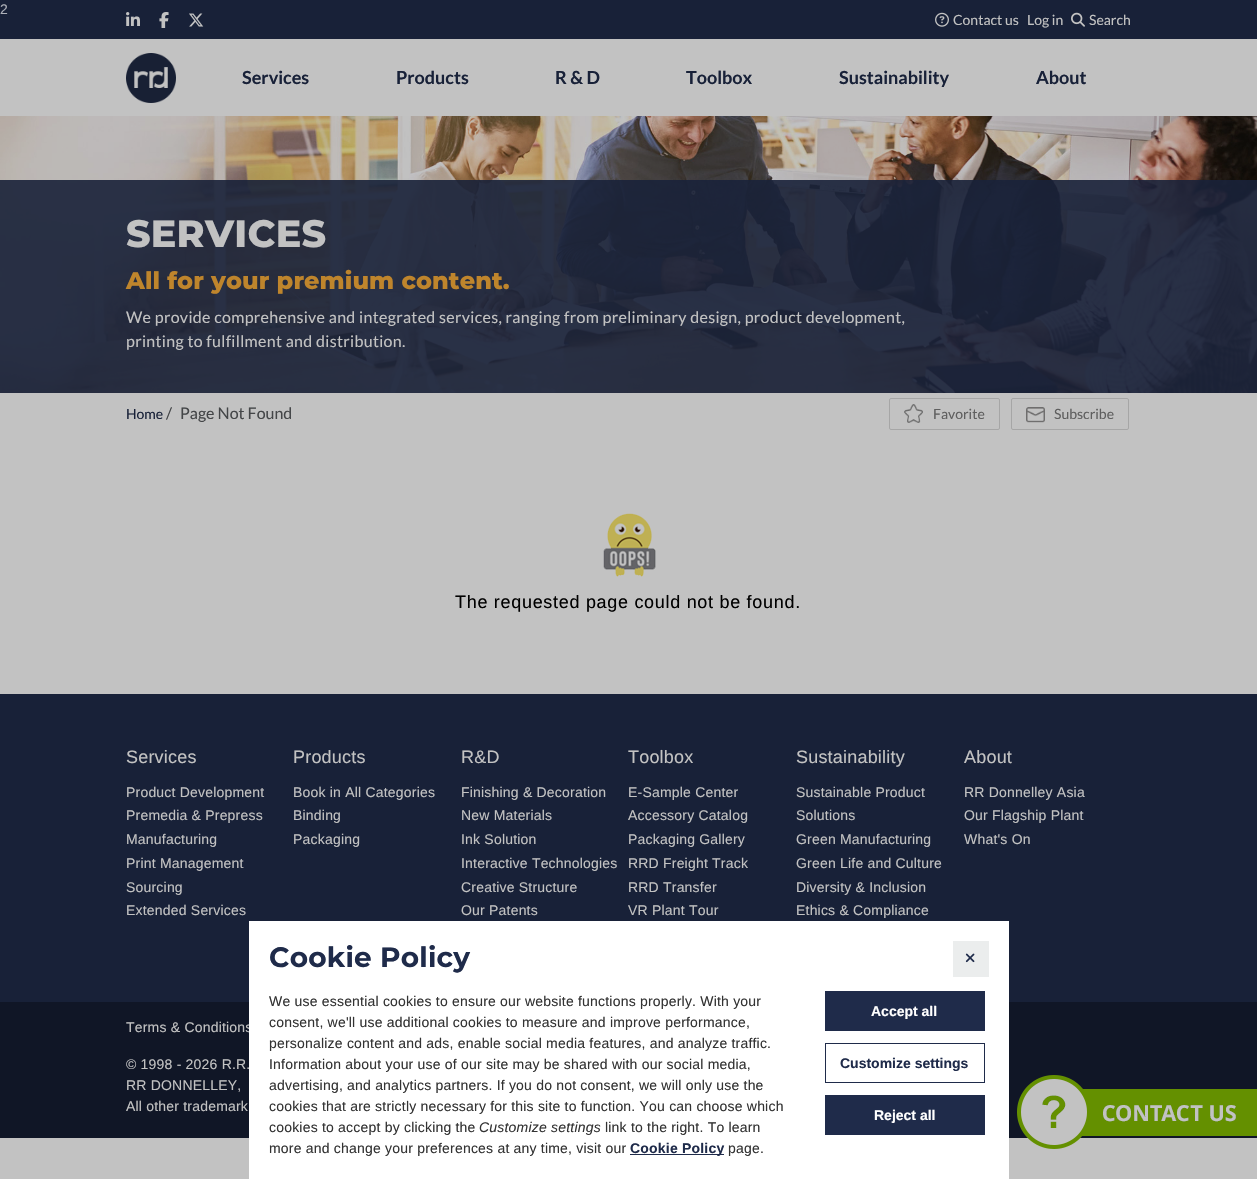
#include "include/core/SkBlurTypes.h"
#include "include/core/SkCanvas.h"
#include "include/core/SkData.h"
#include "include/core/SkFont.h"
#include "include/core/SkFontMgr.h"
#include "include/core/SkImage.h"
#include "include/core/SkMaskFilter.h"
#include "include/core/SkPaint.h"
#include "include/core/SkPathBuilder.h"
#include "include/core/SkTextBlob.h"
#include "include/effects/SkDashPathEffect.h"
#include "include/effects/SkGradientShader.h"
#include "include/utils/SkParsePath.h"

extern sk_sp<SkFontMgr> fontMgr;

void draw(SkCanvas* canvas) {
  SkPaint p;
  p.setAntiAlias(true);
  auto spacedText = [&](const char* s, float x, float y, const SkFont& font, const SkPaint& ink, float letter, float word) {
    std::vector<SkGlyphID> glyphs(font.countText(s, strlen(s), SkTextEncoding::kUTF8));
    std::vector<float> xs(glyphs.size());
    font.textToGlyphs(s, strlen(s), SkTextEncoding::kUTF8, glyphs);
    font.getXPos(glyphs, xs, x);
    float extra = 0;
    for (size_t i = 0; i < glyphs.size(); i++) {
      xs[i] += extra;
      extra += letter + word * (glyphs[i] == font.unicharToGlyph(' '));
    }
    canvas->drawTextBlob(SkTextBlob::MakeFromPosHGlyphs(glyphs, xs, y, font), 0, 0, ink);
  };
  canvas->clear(SkColorSetRGB(194, 194, 194));
  p.setColor(SkColorSetRGB(24, 33, 56));
  canvas->drawRect(SkRect::MakeLTRB(0, 694, 1257, 1002), p);
  p.setColor(SkColorSetRGB(16, 22, 38));
  canvas->drawRect(SkRect::MakeLTRB(0, 1002, 1257, 1138), p);
  p.setColor(SkColorSetRGB(24, 33, 56));
  canvas->drawRect(SkRect::MakeLTRB(0, 0, 1257, 39), p);
  canvas->drawImageRect(SkImages::DeferredFromEncodedData(SkData::MakeFromFileName("images/2.png")), SkRect::MakeLTRB(126, 12, 140, 26), SkSamplingOptions());
  canvas->drawImageRect(SkImages::DeferredFromEncodedData(SkData::MakeFromFileName("images/3.png")), SkRect::MakeLTRB(159, 12, 169, 28), SkSamplingOptions());
  canvas->drawImageRect(SkImages::DeferredFromEncodedData(SkData::MakeFromFileName("images/4.png")), SkRect::MakeLTRB(189, 13, 204, 27), SkSamplingOptions());
  canvas->drawImageRect(SkImages::DeferredFromEncodedData(SkData::MakeFromFileName("images/5.png")), SkRect::MakeLTRB(935, 12, 949, 27), SkSamplingOptions());
  canvas->drawImageRect(SkImages::DeferredFromEncodedData(SkData::MakeFromFileName("images/6.png")), SkRect::MakeLTRB(1071, 12, 1085, 27), SkSamplingOptions());
  canvas->drawImageRect(SkImages::DeferredFromEncodedData(SkData::MakeFromFileName("images/7.png")), SkRect::MakeLTRB(126, 53, 176, 103), SkSamplingOptions());
  canvas->drawImageRect(SkImages::DeferredFromEncodedData(SkData::MakeFromFileName("images/8.png")), SkRect::MakeLTRB(0, 116, 1257, 393), SkSamplingOptions());
  p.setColor(SkColorSetARGB(230, 24, 33, 56));
  canvas->drawRect(SkRect::MakeLTRB(0, 180, 1257, 393), p);
  p.setStyle(SkPaint::kStroke_Style);
  p.setStrokeWidth(1);
  p.setColor(SkColorSetRGB(166, 166, 166));
  canvas->drawRoundRect(SkRect::MakeLTRB(889.5f, 398.5f, 999.5f, 429.5f), 1.5f, 1.5f, p);
  canvas->drawImageRect(SkImages::DeferredFromEncodedData(SkData::MakeFromFileName("images/9.png")), SkRect::MakeLTRB(904, 404, 923, 423), SkSamplingOptions());
  canvas->drawRoundRect(SkRect::MakeLTRB(1011.5f, 398.5f, 1128.5f, 429.5f), 1.5f, 1.5f, p);
  canvas->drawImageRect(SkImages::DeferredFromEncodedData(SkData::MakeFromFileName("images/10.png")), SkRect::MakeLTRB(1026, 407, 1045, 423), SkSamplingOptions());
  canvas->drawImageRect(SkImages::DeferredFromEncodedData(SkData::MakeFromFileName("images/11.png")), SkRect::MakeLTRB(603, 513, 656, 577), SkSamplingOptions());
  canvas->drawImageRect(SkImages::DeferredFromEncodedData(SkData::MakeFromFileName("images/12.png")), SkRect::MakeLTRB(1017, 1075, 1257, 1149), SkSamplingOptions());
  SkFont font1(fontMgr->matchFamilyStyle("Liberation Sans", SkFontStyle::Normal()), 14);
  font1.setSubpixel(true);
  p.setStyle(SkPaint::kFill_Style);
  p.setColor(SkColorSetRGB(174, 177, 185));
  spacedText("2", 0, 14, font1, p, 0.2f, 0);
  p.setColor(SkColorSetRGB(194, 194, 194));
  spacedText("Terms & Conditions", 126, 1032, font1, p, 0.2f, 0);
  spacedText("© 1998 - 2026 R.R.", 126, 1069, font1, p, 0.2f, 0);
  spacedText("RR DONNELLEY,", 126, 1090, font1, p, 0.2f, 0);
  spacedText("All other trademark", 126, 1111, font1, p, 0.2f, 0);
  p.setColor(SK_ColorWHITE);
  canvas->drawRect(SkRect::MakeLTRB(249, 921, 1009, 1179), p);
  SkFont font2(fontMgr->matchFamilyStyle("Montserrat", SkFontStyle::Bold()), 28);
  font2.setSubpixel(true);
  p.setColor(SkColorSetRGB(31, 43, 74));
  spacedText("Cookie Policy", 269, 967, font2, p, 0.2f, 0);
  p.setColor(SkColorSetRGB(235, 237, 237));
  canvas->drawRect(SkRect::MakeLTRB(953, 941, 989, 977), p);
  canvas->drawImageRect(SkImages::DeferredFromEncodedData(SkData::MakeFromFileName("images/1.png")), SkRect::MakeLTRB(965, 953, 975, 963), SkSamplingOptions());
  p.setColor(SkColorSetRGB(51, 51, 51));
  spacedText("We use essential cookies to ensure our website functions properly. With your", 269, 1006, font1, p, 0.2f, 0);
  spacedText("consent, we'll use additional cookies to measure and improve performance,", 269, 1027, font1, p, 0.2f, 0);
  spacedText("personalize content and ads, enable social media features, and analyze traffic.", 269, 1048, font1, p, 0.2f, 0);
  spacedText("Information about your use of our site may be shared with our social media,", 269, 1069, font1, p, 0.2f, 0);
  spacedText("advertising, and analytics partners. If you do not consent, we will only use the", 269, 1090, font1, p, 0.2f, 0);
  spacedText("cookies that are strictly necessary for this site to function. You can choose which", 269, 1111, font1, p, 0.2f, 0);
  spacedText("cookies to accept by clicking the", 269, 1132, font1, p, 0.2f, 0);
  SkFont font3(fontMgr->matchFamilyStyle("Liberation Sans", SkFontStyle::Italic()), 14);
  font3.setSubpixel(true);
  spacedText("Customize settings", 479, 1132, font3, p, 0.2f, 0);
  spacedText("link to the right. To learn", 605, 1132, font1, p, 0.2f, 0);
  spacedText("more and change your preferences at any time, visit our", 269, 1153, font1, p, 0.2f, 0);
  p.setColor(SkColorSetRGB(31, 43, 74));
  canvas->drawRect(SkRect::MakeLTRB(630, 1154, 724, 1155), p);
  SkFont font4(fontMgr->matchFamilyStyle("Liberation Sans", SkFontStyle::Bold()), 14);
  font4.setSubpixel(true);
  spacedText("Cookie Policy", 630, 1153, font4, p, 0.2f, 0);
  p.setColor(SkColorSetRGB(51, 51, 51));
  spacedText("page.", 728, 1153, font1, p, 0.2f, 0);
  p.setColor(SkColorSetRGB(31, 43, 74));
  canvas->drawRect(SkRect::MakeLTRB(825, 991, 985, 1031), p);
  p.setColor(SK_ColorWHITE);
  canvas->drawString("Accept all", 871, 1016, font4, p);
  p.setStyle(SkPaint::kStroke_Style);
  p.setColor(SkColorSetRGB(31, 43, 74));
  canvas->drawRect(SkRect::MakeLTRB(825.5f, 1043.5f, 984.5f, 1082.5f), p);
  p.setStyle(SkPaint::kFill_Style);
  canvas->drawString("Customize settings", 840, 1068, font4, p);
  canvas->drawRect(SkRect::MakeLTRB(825, 1095, 985, 1135), p);
  p.setColor(SK_ColorWHITE);
  canvas->drawString("Reject all", 874, 1120, font4, p);
  SkFont font5(fontMgr->matchFamilyStyle("Liberation Sans", SkFontStyle::Normal()), 18);
  font5.setSubpixel(true);
  p.setColor(SkColorSetRGB(194, 194, 194));
  spacedText("Services", 126, 763, font5, p, 0.2f, 0);
  spacedText("Product Development", 126, 797, font1, p, 0.2f, 0);
  spacedText("Premedia & Prepress", 126, 820, font1, p, 0.2f, 0);
  spacedText("Manufacturing", 126, 844, font1, p, 0.2f, 0);
  spacedText("Print Management", 126, 868, font1, p, 0.2f, 0);
  spacedText("Sourcing", 126, 892, font1, p, 0.2f, 0);
  spacedText("Extended Services", 126, 915, font1, p, 0.2f, 0);
  spacedText("Products", 293, 763, font5, p, 0.2f, 0);
  spacedText("Book in All Categories", 293, 797, font1, p, 0.2f, 0);
  spacedText("Binding", 293, 820, font1, p, 0.2f, 0);
  spacedText("Packaging", 293, 844, font1, p, 0.2f, 0);
  spacedText("R&D", 461, 763, font5, p, 0.2f, 0);
  spacedText("Finishing & Decoration", 461, 797, font1, p, 0.2f, 0);
  spacedText("New Materials", 461, 820, font1, p, 0.2f, 0);
  spacedText("Ink Solution", 461, 844, font1, p, 0.2f, 0);
  spacedText("Interactive Technologies", 461, 868, font1, p, 0.2f, 0);
  spacedText("Creative Structure", 461, 892, font1, p, 0.2f, 0);
  spacedText("Our Patents", 461, 915, font1, p, 0.2f, 0);
  spacedText("Toolbox", 628, 763, font5, p, 0.2f, 0);
  spacedText("E-Sample Center", 628, 797, font1, p, 0.2f, 0);
  spacedText("Accessory Catalog", 628, 820, font1, p, 0.2f, 0);
  spacedText("Packaging Gallery", 628, 844, font1, p, 0.2f, 0);
  spacedText("RRD Freight Track", 628, 868, font1, p, 0.2f, 0);
  spacedText("RRD Transfer", 628, 892, font1, p, 0.2f, 0);
  spacedText("VR Plant Tour", 628, 915, font1, p, 0.2f, 0);
  spacedText("Sustainability", 796, 763, font5, p, 0.2f, 0);
  spacedText("Sustainable Product", 796, 797, font1, p, 0.2f, 0);
  spacedText("Solutions", 796, 820, font1, p, 0.2f, 0);
  spacedText("Green Manufacturing", 796, 844, font1, p, 0.2f, 0);
  spacedText("Green Life and Culture", 796, 868, font1, p, 0.2f, 0);
  spacedText("Diversity & Inclusion", 796, 892, font1, p, 0.2f, 0);
  spacedText("Ethics & Compliance", 796, 915, font1, p, 0.2f, 0);
  spacedText("About", 964, 763, font5, p, 0.2f, 0);
  spacedText("RR Donnelley Asia", 964, 797, font1, p, 0.2f, 0);
  spacedText("Our Flagship Plant", 964, 820, font1, p, 0.2f, 0);
  spacedText("What's On", 964, 844, font1, p, 0.2f, 0);
  SkFont font6(fontMgr->matchFamilyStyle("Lato", SkFontStyle::Normal()), 14);
  font6.setSubpixel(true);
  canvas->drawString("Contact us", 953, 25, font6, p);
  canvas->drawString("Log in", 1027, 25, font6, p);
  canvas->drawString("Search", 1089, 25, font6, p);
  SkFont font7(fontMgr->matchFamilyStyle("Lato", SkFontStyle::Bold()), 18);
  font7.setSubpixel(true);
  p.setColor(SkColorSetRGB(24, 33, 56));
  canvas->drawString("Services", 242, 84, font7, p);
  canvas->drawString("Products", 396, 84, font7, p);
  canvas->drawString("R & D", 555, 84, font7, p);
  canvas->drawString("Toolbox", 686, 84, font7, p);
  canvas->drawString("Sustainability", 839, 84, font7, p);
  canvas->drawString("About", 1036, 84, font7, p);
  SkFont font8(fontMgr->matchFamilyStyle("Montserrat", SkFontStyle(800, SkFontStyle::kNormal_Width, SkFontStyle::kUpright_Slant)), 38);
  font8.setSubpixel(true);
  p.setColor(SkColorSetRGB(194, 194, 194));
  spacedText("SERVICES", 126, 247, font8, p, 0.25f, 0);
  SkFont font9(fontMgr->matchFamilyStyle("Montserrat", SkFontStyle(800, SkFontStyle::kNormal_Width, SkFontStyle::kUpright_Slant)), 24);
  font9.setSubpixel(true);
  p.setColor(SkColorSetRGB(191, 133, 44));
  spacedText("All for your premium content.", 126, 289, font9, p, 0.1f, 0);
  SkFont font10(fontMgr->matchFamilyStyle("Lato", SkFontStyle::Normal()), 16);
  font10.setSubpixel(true);
  p.setColor(SkColorSetRGB(194, 194, 194));
  spacedText("We provide comprehensive and integrated services, ranging from preliminary design, product development,", 126, 323, font10, p, 0.32f, 0);
  spacedText("printing to fulfillment and distribution.", 126, 347, font10, p, 0.32f, 0);
  p.setColor(SkColorSetRGB(24, 33, 56));
  canvas->drawString("Home", 126, 419, font6, p);
  p.setColor(SkColorSetRGB(68, 70, 72));
  canvas->drawString("/", 166, 419, font10, p);
  canvas->drawString("Page Not Found", 180, 419, font10, p);
  p.setColor(SkColorSetRGB(95, 95, 95));
  canvas->drawString("Favorite", 933, 419, font6, p);
  canvas->drawString("Subscribe", 1054, 419, font6, p);
  p.setColor(SK_ColorBLACK);
  spacedText("The requested page could not be found.", 455, 608, font5, p, 0.7f, 0);
}
